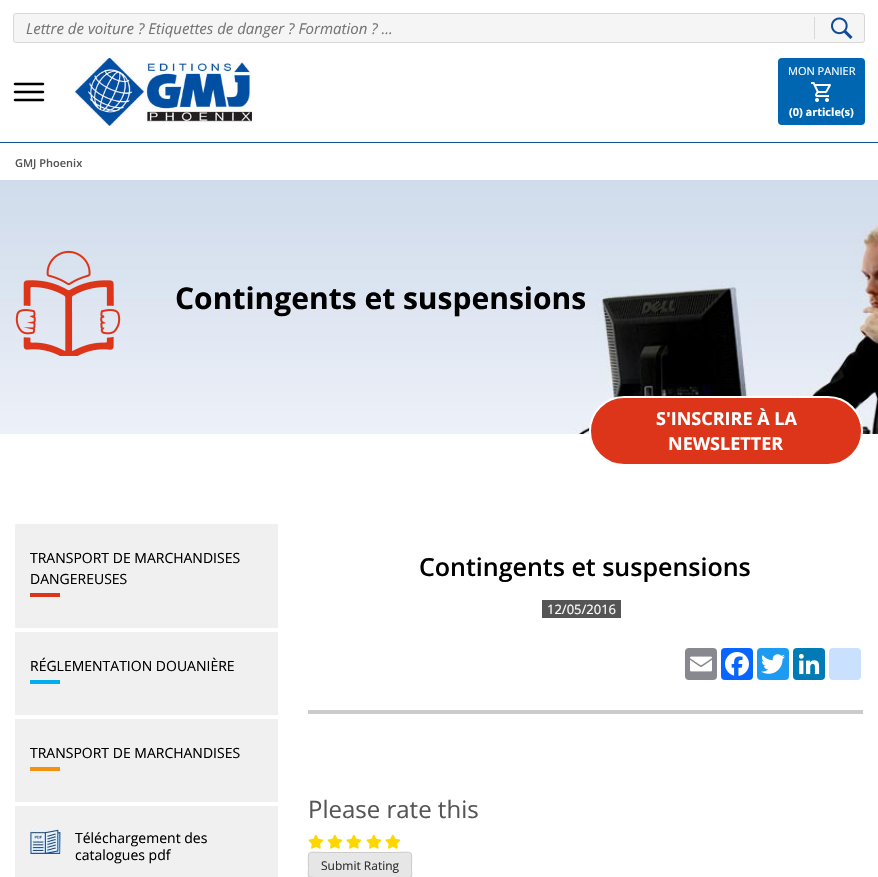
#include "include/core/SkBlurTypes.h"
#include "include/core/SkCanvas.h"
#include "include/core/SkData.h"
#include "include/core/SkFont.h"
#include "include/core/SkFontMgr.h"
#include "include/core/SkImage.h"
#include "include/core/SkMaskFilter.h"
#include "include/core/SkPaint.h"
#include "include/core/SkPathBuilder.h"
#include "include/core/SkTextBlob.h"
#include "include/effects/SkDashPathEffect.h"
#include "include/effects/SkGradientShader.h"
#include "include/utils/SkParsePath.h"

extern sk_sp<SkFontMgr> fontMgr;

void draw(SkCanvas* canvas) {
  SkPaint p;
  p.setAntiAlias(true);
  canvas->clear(SK_ColorWHITE);
  p.setColor(SkColorSetRGB(16, 76, 153));
  canvas->drawRect(SkRect::MakeLTRB(0, 142, 878, 143), p);
  p.setColor(SkColorSetRGB(245, 245, 245));
  canvas->drawRoundRect(SkRect::MakeLTRB(13.5f, 13.5f, 864.5f, 42.5f), 2.5f, 2.5f, p);
  p.setStyle(SkPaint::kStroke_Style);
  p.setStrokeWidth(1);
  p.setColor(SkColorSetRGB(216, 216, 216));
  canvas->drawRoundRect(SkRect::MakeLTRB(13.5f, 13.5f, 864.5f, 42.5f), 2.5f, 2.5f, p);
  p.setStyle(SkPaint::kFill_Style);
  canvas->drawRect(SkRect::MakeLTRB(814, 17, 815, 39), p);
  canvas->drawImageRect(SkImages::DeferredFromEncodedData(SkData::MakeFromFileName("images/1.png")), SkRect::MakeLTRB(831, 17, 853, 39), SkSamplingOptions());
  canvas->drawImageRect(SkImages::DeferredFromEncodedData(SkData::MakeFromFileName("images/2.png")), SkRect::MakeLTRB(13, 82, 45, 102), SkSamplingOptions());
  canvas->drawImageRect(SkImages::DeferredFromEncodedData(SkData::MakeFromFileName("images/3.png")), SkRect::MakeLTRB(75, 58, 252, 126), SkSamplingOptions());
  p.setColor(SkColorSetRGB(1, 102, 177));
  canvas->drawRoundRect(SkRect::MakeLTRB(778, 58, 865, 125), 4, 4, p);
  canvas->drawImageRect(SkImages::DeferredFromEncodedData(SkData::MakeFromFileName("images/4.png")), SkRect::MakeLTRB(811, 82, 831, 102), SkSamplingOptions());
  canvas->drawImageRect(SkImages::DeferredFromEncodedData(SkData::MakeFromFileName("images/5.png")), SkRect::MakeLTRB(0, 180, 878, 434), SkSamplingOptions());
  canvas->drawImageRect(SkImages::DeferredFromEncodedData(SkData::MakeFromFileName("images/6.png")), SkRect::MakeLTRB(15, 250, 121, 356), SkSamplingOptions());
  p.setColor(SkColorSetRGB(220, 53, 26));
  canvas->drawRoundRect(SkRect::MakeLTRB(590, 397, 862, 465), 34, 34, p);
  p.setStyle(SkPaint::kStroke_Style);
  p.setStrokeWidth(2);
  p.setColor(SK_ColorWHITE);
  canvas->drawRoundRect(SkRect::MakeLTRB(590, 397, 862, 465), 34, 34, p);
  p.setStyle(SkPaint::kFill_Style);
  p.setColor(SkColorSetRGB(240, 240, 240));
  canvas->drawRect(SkRect::MakeLTRB(15, 524, 278, 628), p);
  p.setColor(SkColorSetRGB(220, 53, 26));
  canvas->drawRect(SkRect::MakeLTRB(30, 593, 60, 597), p);
  p.setColor(SkColorSetRGB(240, 240, 240));
  canvas->drawRect(SkRect::MakeLTRB(15, 632, 278, 715), p);
  p.setColor(SkColorSetRGB(0, 174, 239));
  canvas->drawRect(SkRect::MakeLTRB(30, 680, 60, 684), p);
  p.setColor(SkColorSetRGB(240, 240, 240));
  canvas->drawRect(SkRect::MakeLTRB(15, 719, 278, 802), p);
  p.setColor(SkColorSetRGB(245, 145, 16));
  canvas->drawRect(SkRect::MakeLTRB(30, 767, 60, 771), p);
  p.setColor(SkColorSetRGB(240, 240, 240));
  canvas->drawRect(SkRect::MakeLTRB(15, 806, 278, 877), p);
  canvas->drawImageRect(SkImages::DeferredFromEncodedData(SkData::MakeFromFileName("images/7.png")), SkRect::MakeLTRB(30, 829, 61, 854), SkSamplingOptions());
  p.setColor(SkColorSetRGB(204, 204, 204));
  canvas->drawRect(SkRect::MakeLTRB(308, 710, 863, 714), p);
  p.setColor(SkColorSetRGB(85, 85, 85));
  canvas->drawRect(SkRect::MakeLTRB(542, 600, 621, 618), p);
  p.setColor(SkColorSetRGB(136, 137, 144));
  canvas->drawRoundRect(SkRect::MakeLTRB(685, 648, 717, 680), 4, 4, p);
  canvas->drawImageRect(SkImages::DeferredFromEncodedData(SkData::MakeFromFileName("images/8.png")), SkRect::MakeLTRB(690, 656, 712, 672), SkSamplingOptions());
  p.setColor(SkColorSetRGB(8, 102, 255));
  canvas->drawRoundRect(SkRect::MakeLTRB(721, 648, 753, 680), 4, 4, p);
  canvas->drawImageRect(SkImages::DeferredFromEncodedData(SkData::MakeFromFileName("images/9.png")), SkRect::MakeLTRB(725, 652, 749, 676), SkSamplingOptions());
  p.setColor(SkColorSetRGB(29, 155, 240));
  canvas->drawRoundRect(SkRect::MakeLTRB(757, 648, 789, 680), 4, 4, p);
  canvas->drawImageRect(SkImages::DeferredFromEncodedData(SkData::MakeFromFileName("images/10.png")), SkRect::MakeLTRB(761, 654, 785, 674), SkSamplingOptions());
  p.setColor(SkColorSetRGB(0, 123, 181));
  canvas->drawRoundRect(SkRect::MakeLTRB(793, 648, 825, 680), 4, 4, p);
  canvas->drawImageRect(SkImages::DeferredFromEncodedData(SkData::MakeFromFileName("images/11.png")), SkRect::MakeLTRB(798, 653, 820, 675), SkSamplingOptions());
  p.setColor(SkColorSetRGB(202, 224, 255));
  canvas->drawRoundRect(SkRect::MakeLTRB(829, 648, 861, 680), 4, 4, p);
  canvas->drawImageRect(SkImages::DeferredFromEncodedData(SkData::MakeFromFileName("images/12.png")), SkRect::MakeLTRB(308, 834, 324, 849), SkSamplingOptions());
  canvas->drawImageRect(SkImages::DeferredFromEncodedData(SkData::MakeFromFileName("images/12.png")), SkRect::MakeLTRB(327, 834, 343, 849), SkSamplingOptions());
  canvas->drawImageRect(SkImages::DeferredFromEncodedData(SkData::MakeFromFileName("images/12.png")), SkRect::MakeLTRB(346, 834, 362, 849), SkSamplingOptions());
  canvas->drawImageRect(SkImages::DeferredFromEncodedData(SkData::MakeFromFileName("images/12.png")), SkRect::MakeLTRB(366, 834, 382, 849), SkSamplingOptions());
  canvas->drawImageRect(SkImages::DeferredFromEncodedData(SkData::MakeFromFileName("images/12.png")), SkRect::MakeLTRB(385, 834, 401, 849), SkSamplingOptions());
  p.setColor(SkColorSetRGB(230, 230, 230));
  canvas->drawRoundRect(SkRect::MakeLTRB(308, 852, 412, 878), 3, 3, p);
  p.setStyle(SkPaint::kStroke_Style);
  p.setStrokeWidth(1);
  p.setColor(SkColorSetRGB(187, 187, 187));
  canvas->drawPath(SkPathBuilder().moveTo(411, 877).lineTo(409, 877.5f).lineTo(392.5f, 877.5f).cubicTo(384, 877.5f, 311.5f, 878.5f, 309.5f, 877).lineTo(309, 877).detach(), p);
  p.setColor(SkColorSetRGB(204, 204, 204));
  canvas->drawPath(SkPathBuilder().moveTo(309, 877).cubicTo(307.5f, 875, 308.5f, 870.5f, 308.5f, 868.5f).cubicTo(308.5f, 848.5f, 305, 852.5f, 327.5f, 852.5f).lineTo(392.5f, 852.5f).cubicTo(415, 852.5f, 411.5f, 848.5f, 411.5f, 868.5f).cubicTo(411.5f, 870.5f, 412.5f, 875, 411, 877).detach(), p);
  SkFont font1(fontMgr->matchFamilyStyle("Open Sans", SkFontStyle::Italic()), 15);
  font1.setSubpixel(true);
  p.setStyle(SkPaint::kFill_Style);
  p.setColor(SkColorSetRGB(117, 117, 117));
  canvas->drawString("Lettre de voiture ? Etiquettes de danger ? Formation ? ...", 26, 34, font1, p);
  SkFont font2(fontMgr->matchFamilyStyle("Open Sans", SkFontStyle::Normal()), 11);
  font2.setSubpixel(true);
  p.setColor(SK_ColorWHITE);
  canvas->drawString("MON PANIER", 788, 75, font2, p);
  SkFont font3(fontMgr->matchFamilyStyle("Open Sans", SkFontStyle::Bold()), 11);
  font3.setSubpixel(true);
  canvas->drawString("(0) article(s)", 789, 116, font3, p);
  SkFont font4(fontMgr->matchFamilyStyle("Open Sans", SkFontStyle(600, SkFontStyle::kNormal_Width, SkFontStyle::kUpright_Slant)), 11);
  font4.setSubpixel(true);
  p.setColor(SkColorSetRGB(85, 85, 85));
  canvas->drawString("GMJ Phoenix", 15, 167, font4, p);
  SkFont font5(fontMgr->matchFamilyStyle("Open Sans", SkFontStyle::Bold()), 30);
  font5.setSubpixel(true);
  p.setColor(SK_ColorBLACK);
  canvas->drawString("Contingents et suspensions", 175, 309, font5, p);
  SkFont font6(fontMgr->matchFamilyStyle("Open Sans", SkFontStyle::Bold()), 18);
  font6.setSubpixel(true);
  p.setColor(SK_ColorWHITE);
  canvas->drawString("S'INSCRIRE À LA", 656, 425, font6, p);
  canvas->drawString("NEWSLETTER", 668, 450, font6, p);
  SkFont font7(fontMgr->matchFamilyStyle("Open Sans", SkFontStyle::Normal()), 14);
  font7.setSubpixel(true);
  p.setColor(SK_ColorBLACK);
  canvas->drawString("TRANSPORT DE MARCHANDISES", 30, 563, font7, p);
  canvas->drawString("DANGEREUSES", 30, 584, font7, p);
  canvas->drawString("RÉGLEMENTATION DOUANIÈRE", 30, 671, font7, p);
  canvas->drawString("TRANSPORT DE MARCHANDISES", 30, 758, font7, p);
  canvas->drawString("Téléchargement des", 75, 843, font7, p);
  canvas->drawString("catalogues pdf", 75, 860, font7, p);
  SkFont font8(fontMgr->matchFamilyStyle("Open Sans", SkFontStyle(600, SkFontStyle::kNormal_Width, SkFontStyle::kUpright_Slant)), 25);
  font8.setSubpixel(true);
  canvas->drawString("Contingents et suspensions", 419, 576, font8, p);
  SkFont font9(fontMgr->matchFamilyStyle("Open Sans", SkFontStyle::Normal()), 13);
  font9.setSubpixel(true);
  p.setColor(SK_ColorWHITE);
  canvas->drawString("12/05/2016", 547, 614, font9, p);
  SkFont font10(fontMgr->matchFamilyStyle("Open Sans", SkFontStyle::Normal()), 24);
  font10.setSubpixel(true);
  p.setColor(SkColorSetRGB(85, 85, 85));
  canvas->drawString("Please rate this", 308, 818, font10, p);
  SkFont font11(fontMgr->matchFamilyStyle("Open Sans", SkFontStyle::Normal()), 12);
  font11.setSubpixel(true);
  p.setColor(SkColorSetRGB(46, 46, 46));
  canvas->drawString("Submit Rating", 321, 870, font11, p);
}
